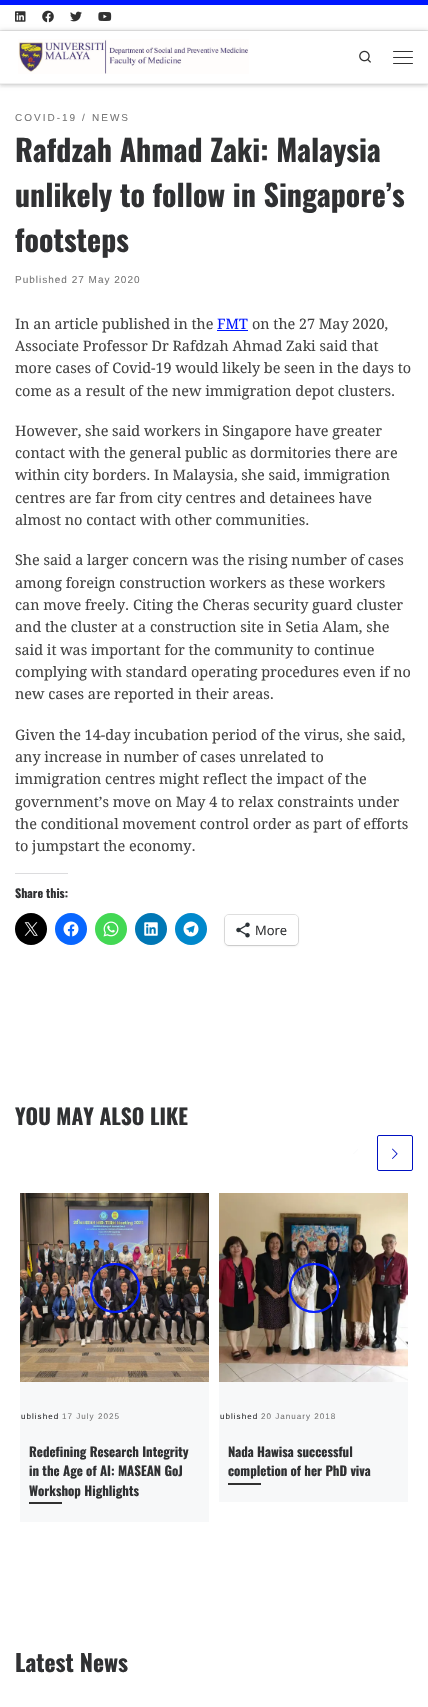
#include "include/core/SkBlurTypes.h"
#include "include/core/SkCanvas.h"
#include "include/core/SkData.h"
#include "include/core/SkFont.h"
#include "include/core/SkFontMgr.h"
#include "include/core/SkImage.h"
#include "include/core/SkMaskFilter.h"
#include "include/core/SkPaint.h"
#include "include/core/SkPathBuilder.h"
#include "include/core/SkTextBlob.h"
#include "include/effects/SkDashPathEffect.h"
#include "include/effects/SkGradientShader.h"
#include "include/utils/SkParsePath.h"

extern sk_sp<SkFontMgr> fontMgr;

void draw(SkCanvas* canvas) {
  SkPaint p;
  p.setAntiAlias(true);
  auto spacedText = [&](const char* s, float x, float y, const SkFont& font, const SkPaint& ink, float letter, float word) {
    std::vector<SkGlyphID> glyphs(font.countText(s, strlen(s), SkTextEncoding::kUTF8));
    std::vector<float> xs(glyphs.size());
    font.textToGlyphs(s, strlen(s), SkTextEncoding::kUTF8, glyphs);
    font.getXPos(glyphs, xs, x);
    float extra = 0;
    for (size_t i = 0; i < glyphs.size(); i++) {
      xs[i] += extra;
      extra += letter + word * (glyphs[i] == font.unicharToGlyph(' '));
    }
    canvas->drawTextBlob(SkTextBlob::MakeFromPosHGlyphs(glyphs, xs, y, font), 0, 0, ink);
  };
  canvas->clear(SK_ColorWHITE);
  canvas->save();
  canvas->clipRect(SkRect::MakeLTRB(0, 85, 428, 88));
  p.setColor(SkColorSetARGB(20, 102, 102, 102));
  p.setMaskFilter(SkMaskFilter::MakeBlur(kNormal_SkBlurStyle, 1));
  canvas->drawRect(SkRect::MakeLTRB(0, 2, 428, 87), p);
  p.setMaskFilter(nullptr);
  canvas->restore();
  p.setColor(SkColorSetRGB(0, 23, 255));
  canvas->drawRect(SkRect::MakeLTRB(0, 0, 428, 5), p);
  p.setColor(SkColorSetRGB(236, 236, 236));
  canvas->drawRect(SkRect::MakeLTRB(0, 30, 428, 31), p);
  canvas->drawImageRect(SkImages::DeferredFromEncodedData(SkData::MakeFromFileName("images/1.png")), SkRect::MakeLTRB(15, 11, 26, 22), SkSamplingOptions());
  p.setColor(SkColorSetRGB(239, 239, 239));
  canvas->drawRect(SkRect::MakeLTRB(0, 84, 428, 85), p);
  canvas->save();
  canvas->clipPath(SkPathBuilder(SkPathFillType::kEvenOdd).moveTo(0, 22).lineTo(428, 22).lineTo(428, 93).lineTo(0, 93).close().moveTo(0, 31).lineTo(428, 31).lineTo(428, 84).lineTo(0, 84).close().detach(), true);
  p.setColor(SkColorSetARGB(51, 0, 0, 0));
  p.setMaskFilter(SkMaskFilter::MakeBlur(kNormal_SkBlurStyle, 2.5f));
  canvas->drawRect(SkRect::MakeLTRB(0, 31, 428, 84), p);
  p.setMaskFilter(nullptr);
  canvas->restore();
  canvas->drawImageRect(SkImages::DeferredFromEncodedData(SkData::MakeFromFileName("images/2.png")), SkRect::MakeLTRB(42, 10, 54, 23), SkSamplingOptions());
  canvas->drawImageRect(SkImages::DeferredFromEncodedData(SkData::MakeFromFileName("images/3.png")), SkRect::MakeLTRB(70, 11, 82, 22), SkSamplingOptions());
  canvas->drawImageRect(SkImages::DeferredFromEncodedData(SkData::MakeFromFileName("images/4.png")), SkRect::MakeLTRB(98, 12, 112, 21), SkSamplingOptions());
  canvas->drawImageRect(SkImages::DeferredFromEncodedData(SkData::MakeFromFileName("images/5.png")), SkRect::MakeLTRB(18, 39, 249, 74), SkSamplingOptions());
  canvas->drawImageRect(SkImages::DeferredFromEncodedData(SkData::MakeFromFileName("images/6.png")), SkRect::MakeLTRB(359, 50, 371, 63), SkSamplingOptions());
  p.setColor(SkColorSetRGB(49, 49, 49));
  canvas->drawRoundRect(SkRect::MakeLTRB(393, 51, 413, 52), 0.5f, 0.5f, p);
  canvas->drawRoundRect(SkRect::MakeLTRB(393, 57, 413, 58), 0.5f, 0.5f, p);
  canvas->drawRoundRect(SkRect::MakeLTRB(393, 63, 413, 64), 0.5f, 0.5f, p);
  p.setColor(SkColorSetRGB(240, 240, 240));
  canvas->drawRect(SkRect::MakeLTRB(0, 83, 428, 84), p);
  p.setColor(SkColorSetRGB(0, 23, 255));
  canvas->drawRect(SkRect::MakeLTRB(217, 330, 248, 331), p);
  p.setColor(SkColorSetRGB(220, 220, 222));
  canvas->drawRect(SkRect::MakeLTRB(15, 873, 68, 874), p);
  p.setColor(SK_ColorBLACK);
  canvas->drawCircle(31, 929, 16, p);
  canvas->drawImageRect(SkImages::DeferredFromEncodedData(SkData::MakeFromFileName("images/7.png")), SkRect::MakeLTRB(24, 922, 38, 936), SkSamplingOptions());
  p.setColor(SkColorSetRGB(8, 102, 255));
  canvas->drawCircle(71, 929, 16, p);
  canvas->drawImageRect(SkImages::DeferredFromEncodedData(SkData::MakeFromFileName("images/8.png")), SkRect::MakeLTRB(63, 921, 79, 937), SkSamplingOptions());
  p.setColor(SkColorSetRGB(67, 216, 84));
  canvas->drawCircle(111, 929, 16, p);
  canvas->drawImageRect(SkImages::DeferredFromEncodedData(SkData::MakeFromFileName("images/9.png")), SkRect::MakeLTRB(103, 921, 119, 937), SkSamplingOptions());
  p.setColor(SkColorSetRGB(0, 119, 181));
  canvas->drawCircle(151, 929, 16, p);
  canvas->drawImageRect(SkImages::DeferredFromEncodedData(SkData::MakeFromFileName("images/10.png")), SkRect::MakeLTRB(144, 922, 158, 936), SkSamplingOptions());
  p.setColor(SkColorSetRGB(0, 136, 204));
  canvas->drawCircle(191, 929, 16, p);
  canvas->drawImageRect(SkImages::DeferredFromEncodedData(SkData::MakeFromFileName("images/11.png")), SkRect::MakeLTRB(183, 921, 199, 937), SkSamplingOptions());
  p.setStyle(SkPaint::kStroke_Style);
  p.setStrokeWidth(1);
  p.setColor(SkColorSetRGB(224, 224, 224));
  canvas->drawRoundRect(SkRect::MakeLTRB(224.5f, 914.5f, 298.5f, 945.5f), 4.5f, 4.5f, p);
  p.setStyle(SkPaint::kFill_Style);
  p.setColor(SkColorSetARGB(31, 0, 0, 0));
  p.setMaskFilter(SkMaskFilter::MakeBlur(kNormal_SkBlurStyle, 1));
  canvas->drawRoundRect(SkRect::MakeLTRB(225, 916, 298, 946), 4, 4, p);
  p.setMaskFilter(nullptr);
  p.setColor(SK_ColorWHITE);
  canvas->drawRoundRect(SkRect::MakeLTRB(225, 915, 298, 945), 4, 4, p);
  canvas->drawImageRect(SkImages::DeferredFromEncodedData(SkData::MakeFromFileName("images/12.png")), SkRect::MakeLTRB(236, 922, 250, 938), SkSamplingOptions());
  canvas->drawImageRect(SkImages::DeferredFromEncodedData(SkData::MakeFromFileName("images/13.png")), SkRect::MakeLTRB(353, 1149, 358, 1154), SkSamplingOptions());
  p.setStyle(SkPaint::kStroke_Style);
  p.setColor(SkColorSetRGB(0, 17, 194));
  canvas->drawRoundRect(SkRect::MakeLTRB(377.5f, 1135.5f, 412.5f, 1170.5f), 1.5f, 1.5f, p);
  canvas->drawImageRect(SkImages::DeferredFromEncodedData(SkData::MakeFromFileName("images/14.png")), SkRect::MakeLTRB(392, 1148, 398, 1159), SkSamplingOptions());
  p.setStyle(SkPaint::kFill_Style);
  p.setColor(SkColorSetRGB(247, 248, 249));
  canvas->drawRect(SkRect::MakeLTRB(20, 1382, 209, 1522), p);
  canvas->drawImageRect(SkImages::DeferredFromEncodedData(SkData::MakeFromFileName("images/15.png")), SkRect::MakeLTRB(20, 1193, 209, 1382), SkSamplingOptions());
  p.setStyle(SkPaint::kStroke_Style);
  p.setStrokeWidth(2);
  p.setColor(SkColorSetARGB(166, 0, 23, 255));
  canvas->drawCircle(115, 1288, 24, p);
  canvas->drawCircle(115, 1288, 24, p);
  canvas->drawCircle(115, 1288, 24, p);
  p.setStyle(SkPaint::kFill_Style);
  p.setColor(SkColorSetRGB(49, 49, 49));
  canvas->drawRect(SkRect::MakeLTRB(29, 1502, 62, 1504), p);
  p.setColor(SkColorSetRGB(247, 248, 249));
  canvas->drawRect(SkRect::MakeLTRB(219, 1382, 408, 1502), p);
  canvas->drawImageRect(SkImages::DeferredFromEncodedData(SkData::MakeFromFileName("images/16.png")), SkRect::MakeLTRB(219, 1193, 408, 1382), SkSamplingOptions());
  p.setStyle(SkPaint::kStroke_Style);
  p.setColor(SkColorSetARGB(166, 0, 23, 255));
  canvas->drawCircle(314, 1288, 24, p);
  canvas->drawCircle(314, 1288, 24, p);
  canvas->drawCircle(314, 1288, 24, p);
  p.setStyle(SkPaint::kFill_Style);
  p.setColor(SkColorSetRGB(49, 49, 49));
  canvas->drawRect(SkRect::MakeLTRB(228, 1483, 261, 1485), p);
  SkFont font1(fontMgr->matchFamilyStyle("Liberation Sans", SkFontStyle::Normal()), 10);
  font1.setSubpixel(true);
  p.setColor(SkColorSetRGB(119, 119, 119));
  spacedText("COVID-19", 15, 121, font1, p, 2, 0);
  spacedText("/", 82, 121, font1, p, 2, 0);
  spacedText("NEWS", 92, 121, font1, p, 2, 0);
  SkFont font2(fontMgr->matchFamilyStyle("Oswald", SkFontStyle::Bold()), 29.9f);
  font2.setSubpixel(true);
  p.setColor(SkColorSetRGB(48, 49, 51));
  canvas->drawString("Rafdzah Ahmad Zaki: Malaysia", 15, 162, font2, p);
  canvas->drawString("unlikely to follow in Singapore’s", 15, 207, font2, p);
  canvas->drawString("footsteps", 15, 252, font2, p);
  p.setColor(SkColorSetRGB(119, 119, 119));
  spacedText("Published 27 May 2020", 15, 283, font1, p, 1, 0);
  SkFont font3(fontMgr->matchFamilyStyle("Droid Serif", SkFontStyle::Normal()), 14.4f);
  font3.setSubpixel(true);
  p.setColor(SkColorSetRGB(68, 68, 68));
  canvas->drawString("In an article published in the", 15, 329, font3, p);
  p.setColor(SkColorSetRGB(0, 23, 255));
  canvas->drawString("FMT", 217, 329, font3, p);
  p.setColor(SkColorSetRGB(68, 68, 68));
  canvas->drawString("on the 27 May 2020,", 252, 329, font3, p);
  canvas->drawString("Associate Professor Dr Rafdzah Ahmad Zaki said that", 15, 351, font3, p);
  canvas->drawString("more cases of Covid-19 would likely be seen in the days to", 15, 373, font3, p);
  canvas->drawString("come as a result of the new immigration depot clusters.", 15, 396, font3, p);
  canvas->drawString("However, she said workers in Singapore have greater", 15, 436, font3, p);
  canvas->drawString("contact with the general public as dormitories there are", 15, 458, font3, p);
  canvas->drawString("within city borders. In Malaysia, she said, immigration", 15, 480, font3, p);
  canvas->drawString("centres are far from city centres and detainees have", 15, 503, font3, p);
  canvas->drawString("almost no contact with other communities.", 15, 525, font3, p);
  canvas->drawString("She said a larger concern was the rising number of cases", 15, 565, font3, p);
  canvas->drawString("among foreign construction workers as these workers", 15, 588, font3, p);
  canvas->drawString("can move freely. Citing the Cheras security guard cluster", 15, 610, font3, p);
  canvas->drawString("and the cluster at a construction site in Setia Alam, she", 15, 632, font3, p);
  canvas->drawString("said it was important for the community to continue", 15, 655, font3, p);
  canvas->drawString("complying with standard operating procedures even if no", 15, 677, font3, p);
  canvas->drawString("new cases are reported in their areas.", 15, 699, font3, p);
  canvas->drawString("Given the 14-day incubation period of the virus, she said,", 15, 740, font3, p);
  canvas->drawString("any increase in number of cases unrelated to", 15, 762, font3, p);
  canvas->drawString("immigration centres might reflect the impact of the", 15, 784, font3, p);
  canvas->drawString("government’s move on May 4 to relax constraints under", 15, 807, font3, p);
  canvas->drawString("the conditional movement control order as part of efforts", 15, 829, font3, p);
  canvas->drawString("to jumpstart the economy.", 15, 851, font3, p);
  SkFont font4(fontMgr->matchFamilyStyle("Oswald", SkFontStyle::Bold()), 12);
  font4.setSubpixel(true);
  p.setColor(SkColorSetRGB(48, 49, 51));
  canvas->drawString("Share this:", 15, 898, font4, p);
  SkFont font5(fontMgr->matchFamilyStyle("Open Sans", SkFontStyle::Normal()), 13);
  font5.setSubpixel(true);
  canvas->drawString("More", 255, 935, font5, p);
  SkFont font6(fontMgr->matchFamilyStyle("Oswald", SkFontStyle::Bold()), 21.5f);
  font6.setSubpixel(true);
  canvas->drawString("YOU MAY ALSO LIKE", 15, 1125, font6, p);
  SkFont font7(fontMgr->matchFamilyStyle("Liberation Sans", SkFontStyle::Normal()), 8.1f);
  font7.setSubpixel(true);
  spacedText("ublished", 21, 1419, font7, p, 1, 0);
  p.setColor(SkColorSetRGB(119, 119, 119));
  spacedText("17 July 2025", 62, 1419, font7, p, 1, 0);
  SkFont font8(fontMgr->matchFamilyStyle("Oswald", SkFontStyle::Bold()), 13);
  font8.setSubpixel(true);
  p.setColor(SkColorSetRGB(48, 49, 51));
  canvas->drawString("Redefining Research Integrity", 29, 1457, font8, p);
  canvas->drawString("in the Age of AI: MASEAN GoJ", 29, 1476, font8, p);
  canvas->drawString("Workshop Highlights", 29, 1496, font8, p);
  spacedText("ublished", 220, 1419, font7, p, 1, 0);
  p.setColor(SkColorSetRGB(119, 119, 119));
  spacedText("20 January 2018", 261, 1419, font7, p, 1, 0);
  p.setColor(SkColorSetRGB(48, 49, 51));
  canvas->drawString("Nada Hawisa successful", 228, 1457, font8, p);
  canvas->drawString("completion of her PhD viva", 228, 1476, font8, p);
  SkFont font9(fontMgr->matchFamilyStyle("Oswald", SkFontStyle::Bold()), 23.5f);
  font9.setSubpixel(true);
  canvas->drawString("Latest News", 15, 1672, font9, p);
}
